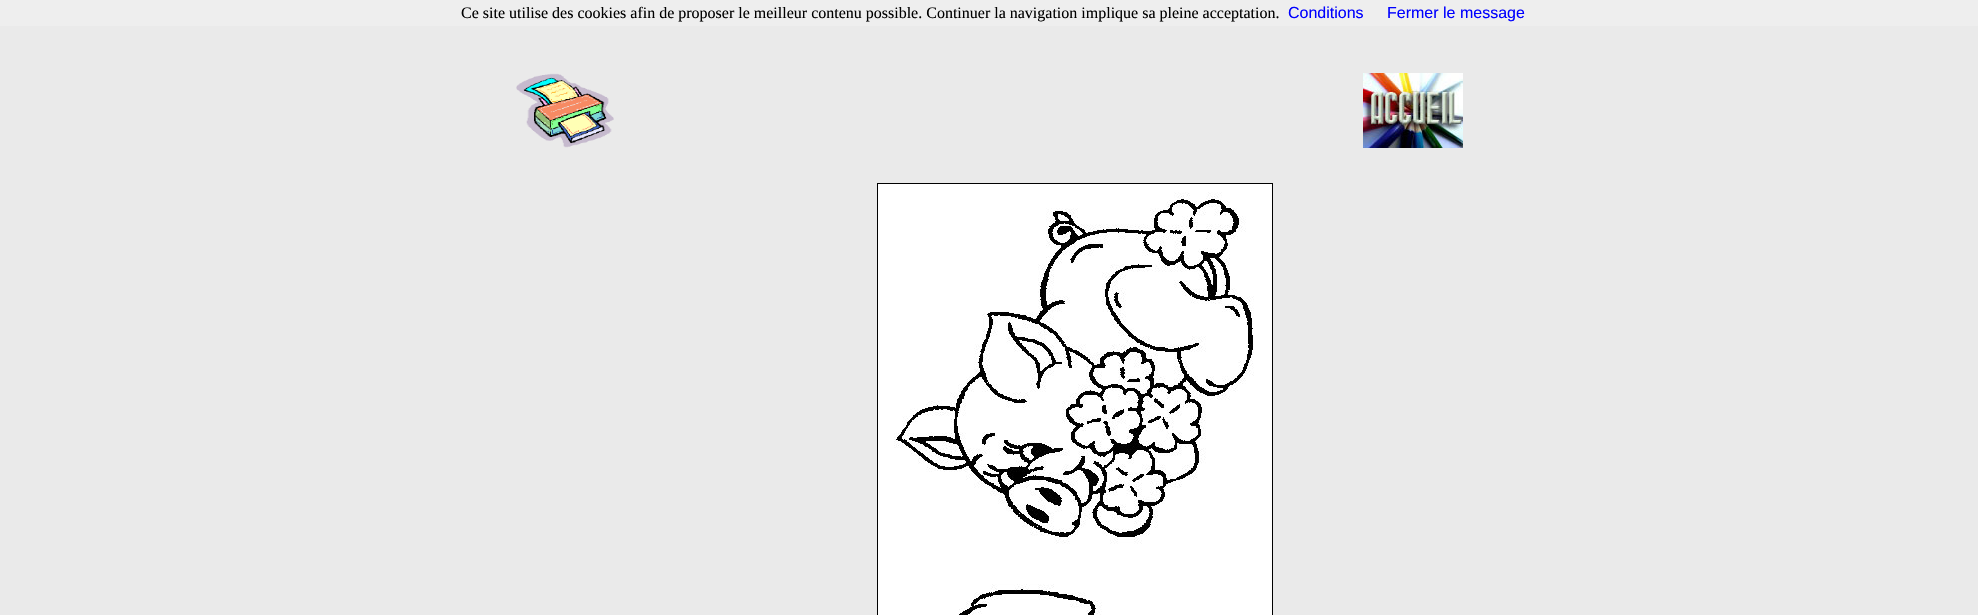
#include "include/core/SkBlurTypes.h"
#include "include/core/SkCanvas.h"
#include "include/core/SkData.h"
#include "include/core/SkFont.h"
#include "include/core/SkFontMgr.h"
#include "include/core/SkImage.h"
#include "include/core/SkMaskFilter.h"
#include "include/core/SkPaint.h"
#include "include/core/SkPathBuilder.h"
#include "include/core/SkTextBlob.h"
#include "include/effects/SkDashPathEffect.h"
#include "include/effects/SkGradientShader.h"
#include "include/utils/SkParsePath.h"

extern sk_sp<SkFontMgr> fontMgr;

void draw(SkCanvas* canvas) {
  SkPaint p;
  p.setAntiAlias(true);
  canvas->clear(SkColorSetRGB(234, 234, 234));
  p.setColor(SkColorSetRGB(238, 238, 238));
  canvas->drawRect(SkRect::MakeLTRB(0, 0, 1978, 26), p);
  canvas->drawImageRect(SkImages::DeferredFromEncodedData(SkData::MakeFromFileName("images/1.png")), SkRect::MakeLTRB(516, 73, 614, 148), SkSamplingOptions());
  canvas->drawImageRect(SkImages::DeferredFromEncodedData(SkData::MakeFromFileName("images/2.png")), SkRect::MakeLTRB(1363, 73, 1463, 148), SkSamplingOptions());
  p.setStyle(SkPaint::kStroke_Style);
  p.setStrokeWidth(1);
  p.setColor(SK_ColorBLACK);
  canvas->drawRect(SkRect::MakeLTRB(877.5f, 183.5f, 1272.5f, 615.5f), p);
  canvas->drawImageRect(SkImages::DeferredFromEncodedData(SkData::MakeFromFileName("images/3.png")), SkRect::MakeLTRB(878, 184, 1272, 615), SkSamplingOptions());
  SkFont font1(fontMgr->matchFamilyStyle("Liberation Serif", SkFontStyle::Normal()), 16);
  font1.setSubpixel(true);
  p.setStyle(SkPaint::kFill_Style);
  canvas->drawString("Ce site utilise des cookies afin de proposer le meilleur contenu possible. Continuer la navigation implique sa pleine acceptation.", 461, 18, font1, p);
  SkFont font2(fontMgr->matchFamilyStyle("Liberation Sans", SkFontStyle::Normal()), 16);
  font2.setSubpixel(true);
  p.setColor(SkColorSetRGB(0, 0, 255));
  canvas->drawString("Conditions", 1288, 18, font2, p);
  canvas->drawString("Fermer le message", 1387, 18, font2, p);
}
